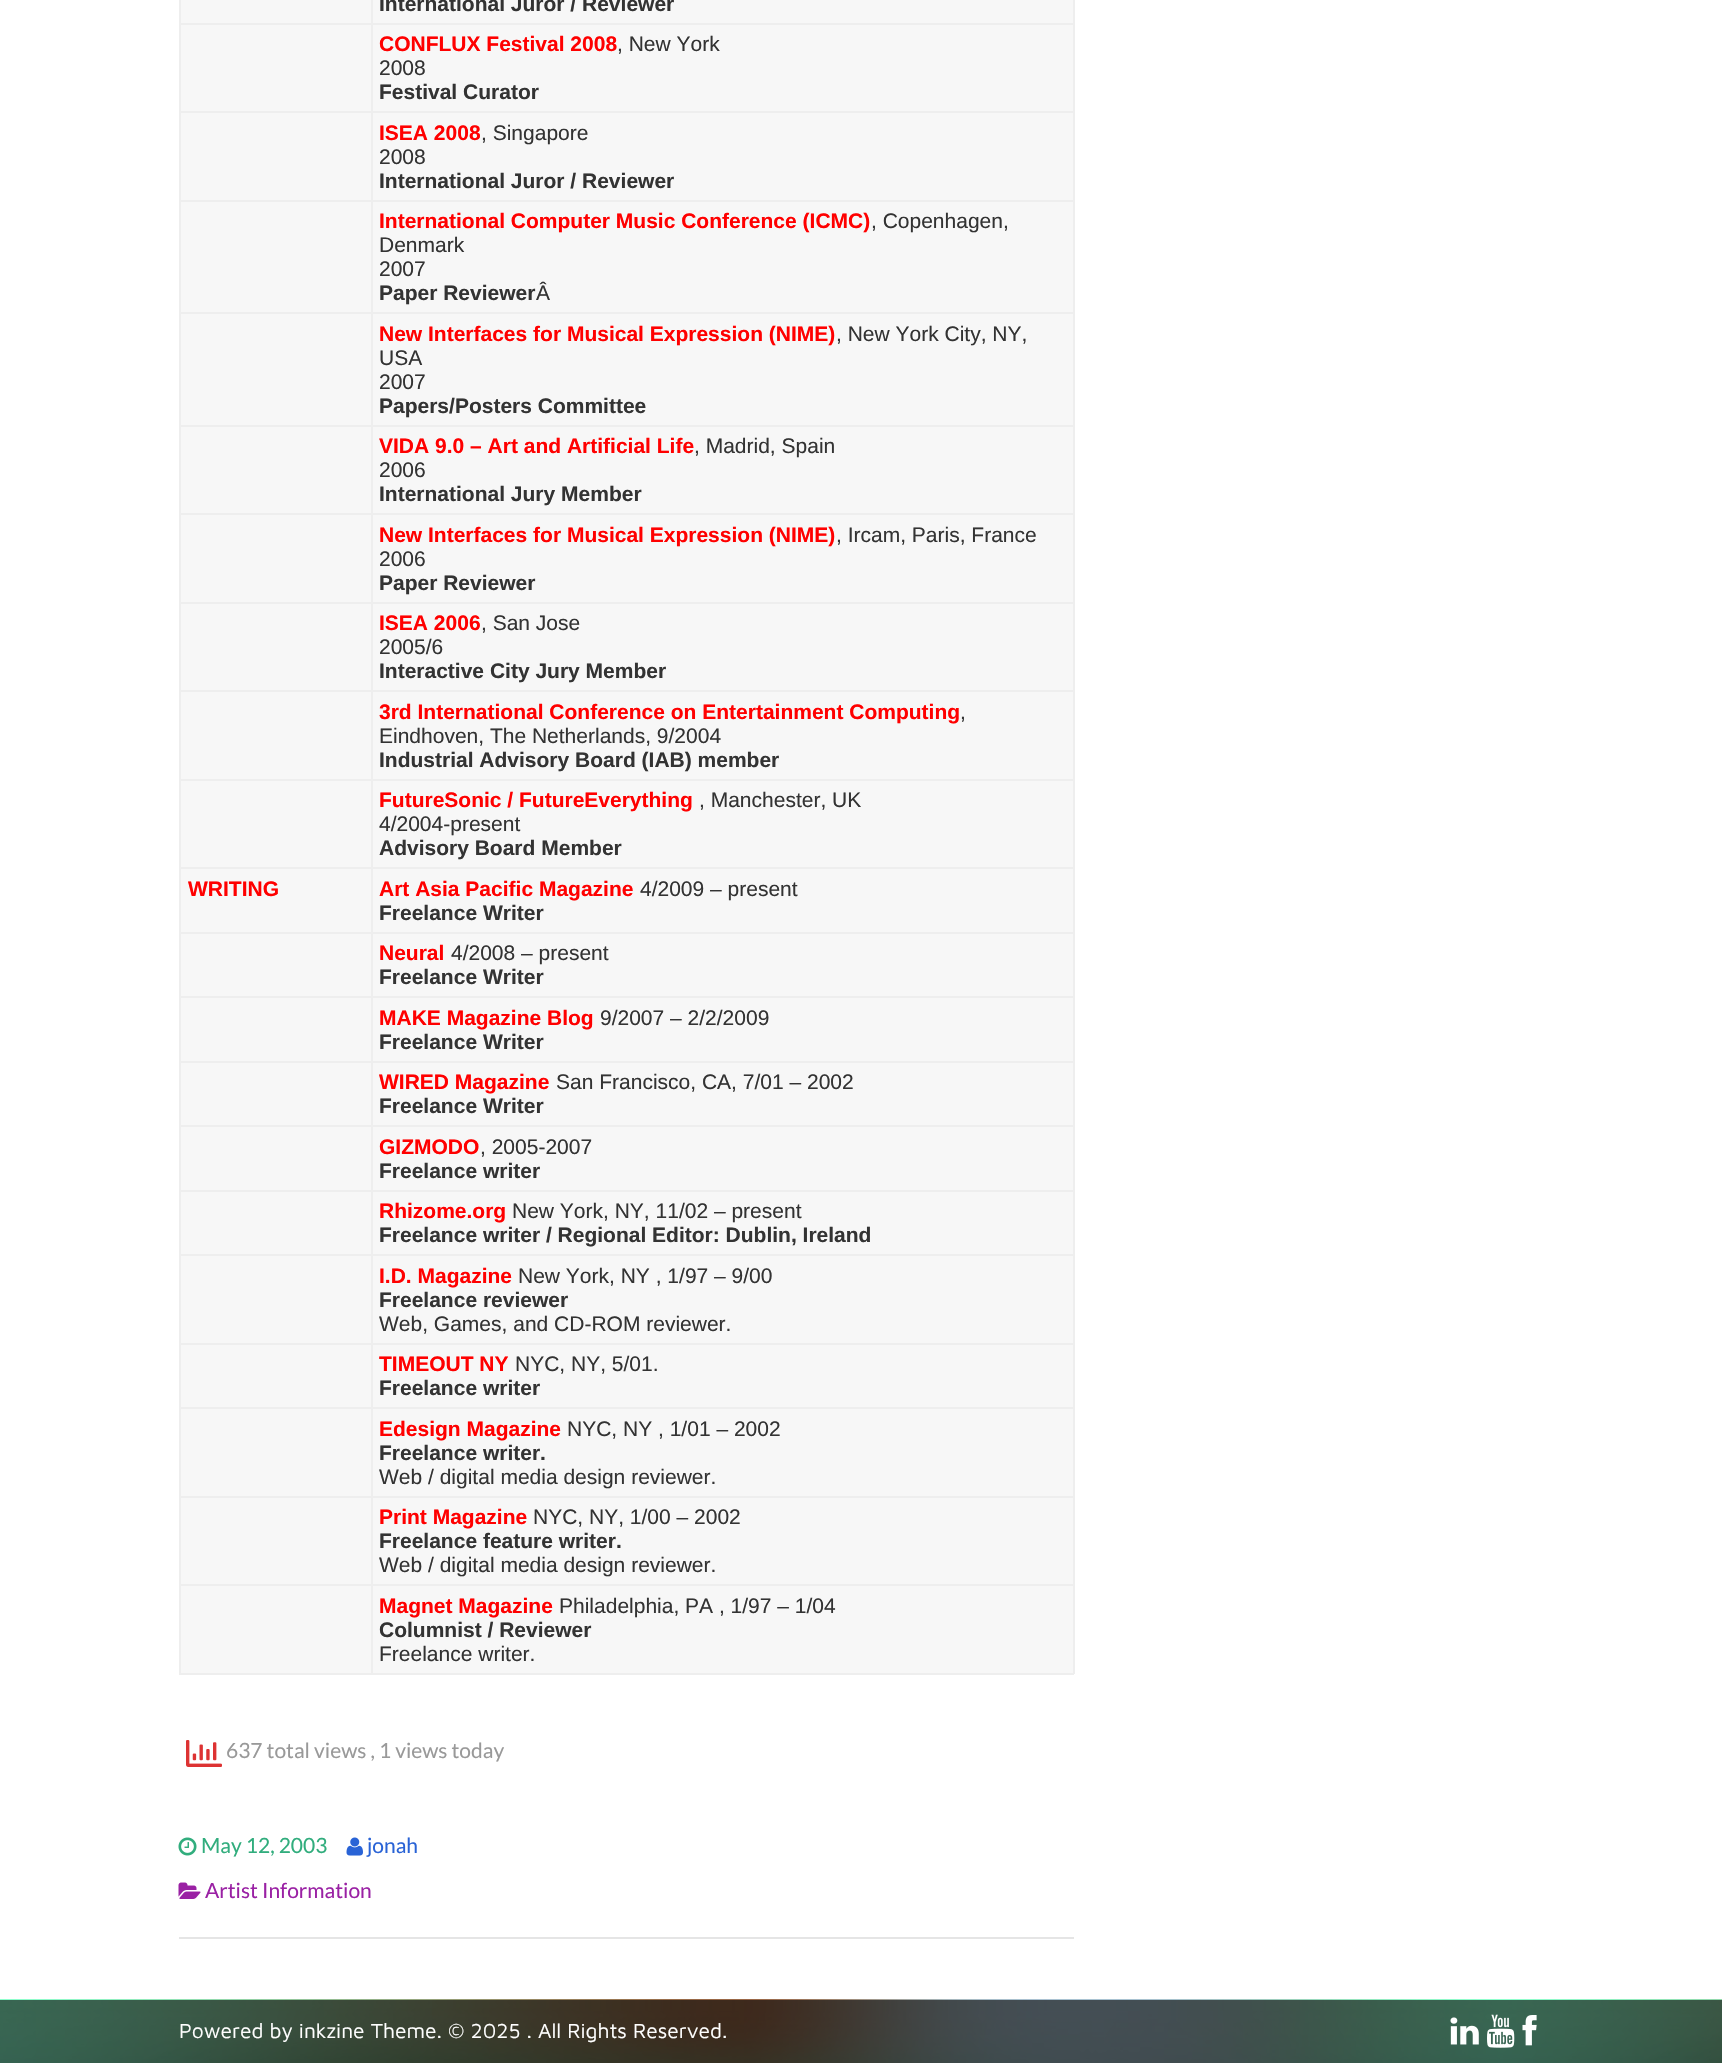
#include "include/core/SkBlurTypes.h"
#include "include/core/SkCanvas.h"
#include "include/core/SkData.h"
#include "include/core/SkFont.h"
#include "include/core/SkFontMgr.h"
#include "include/core/SkImage.h"
#include "include/core/SkMaskFilter.h"
#include "include/core/SkPaint.h"
#include "include/core/SkPathBuilder.h"
#include "include/core/SkTextBlob.h"
#include "include/effects/SkDashPathEffect.h"
#include "include/effects/SkGradientShader.h"
#include "include/utils/SkParsePath.h"

extern sk_sp<SkFontMgr> fontMgr;

void draw(SkCanvas* canvas) {
  SkPaint p;
  p.setAntiAlias(true);
  canvas->clear(SK_ColorWHITE);
  p.setColor(SkColorSetRGB(229, 229, 229));
  canvas->drawRect(SkRect::MakeLTRB(179, 1937, 1074, 1939), p);
  p.setColor(SkColorSetRGB(247, 247, 247));
  canvas->drawRect(SkRect::MakeLTRB(181, 0, 1073, 1673), p);
  p.setColor(SkColorSetRGB(238, 238, 238));
  canvas->drawRect(SkRect::MakeLTRB(371, 23, 1074, 25), p);
  canvas->drawRect(SkRect::MakeLTRB(371, 111, 1074, 113), p);
  canvas->drawRect(SkRect::MakeLTRB(371, 200, 1074, 202), p);
  canvas->drawRect(SkRect::MakeLTRB(371, 312, 1074, 314), p);
  canvas->drawRect(SkRect::MakeLTRB(371, 425, 1074, 427), p);
  canvas->drawRect(SkRect::MakeLTRB(371, 513, 1074, 515), p);
  canvas->drawRect(SkRect::MakeLTRB(371, 602, 1074, 604), p);
  canvas->drawRect(SkRect::MakeLTRB(371, 690, 1074, 692), p);
  canvas->drawRect(SkRect::MakeLTRB(371, 779, 1074, 781), p);
  canvas->drawRect(SkRect::MakeLTRB(371, 867, 1074, 869), p);
  canvas->drawRect(SkRect::MakeLTRB(371, 932, 1074, 934), p);
  canvas->drawRect(SkRect::MakeLTRB(371, 996, 1074, 998), p);
  canvas->drawRect(SkRect::MakeLTRB(371, 1061, 1074, 1063), p);
  canvas->drawRect(SkRect::MakeLTRB(371, 1125, 1074, 1127), p);
  canvas->drawRect(SkRect::MakeLTRB(371, 1190, 1074, 1192), p);
  canvas->drawRect(SkRect::MakeLTRB(371, 1254, 1074, 1256), p);
  canvas->drawRect(SkRect::MakeLTRB(371, 1343, 1074, 1345), p);
  canvas->drawRect(SkRect::MakeLTRB(371, 1407, 1074, 1409), p);
  canvas->drawRect(SkRect::MakeLTRB(371, 1496, 1074, 1498), p);
  canvas->drawRect(SkRect::MakeLTRB(371, 1584, 1074, 1586), p);
  canvas->drawRect(SkRect::MakeLTRB(1073, 1584, 1075, 1674), p);
  canvas->drawRect(SkRect::MakeLTRB(371, 1673, 1074, 1675), p);
  canvas->drawRect(SkRect::MakeLTRB(371, 1584, 373, 1674), p);
  canvas->drawRect(SkRect::MakeLTRB(179, 1584, 372, 1586), p);
  canvas->drawRect(SkRect::MakeLTRB(371, 1496, 373, 1586), p);
  canvas->drawRect(SkRect::MakeLTRB(179, 1496, 372, 1498), p);
  canvas->drawRect(SkRect::MakeLTRB(371, 1407, 373, 1497), p);
  canvas->drawRect(SkRect::MakeLTRB(179, 1407, 372, 1409), p);
  canvas->drawRect(SkRect::MakeLTRB(371, 1343, 373, 1409), p);
  canvas->drawRect(SkRect::MakeLTRB(179, 1343, 372, 1345), p);
  canvas->drawRect(SkRect::MakeLTRB(371, 1254, 373, 1344), p);
  canvas->drawRect(SkRect::MakeLTRB(179, 1254, 372, 1256), p);
  canvas->drawRect(SkRect::MakeLTRB(371, 1190, 373, 1256), p);
  canvas->drawRect(SkRect::MakeLTRB(179, 1190, 372, 1192), p);
  canvas->drawRect(SkRect::MakeLTRB(371, 1125, 373, 1191), p);
  canvas->drawRect(SkRect::MakeLTRB(179, 1125, 372, 1127), p);
  canvas->drawRect(SkRect::MakeLTRB(371, 1061, 373, 1127), p);
  canvas->drawRect(SkRect::MakeLTRB(179, 1061, 372, 1063), p);
  canvas->drawRect(SkRect::MakeLTRB(371, 996, 373, 1062), p);
  canvas->drawRect(SkRect::MakeLTRB(179, 996, 372, 998), p);
  canvas->drawRect(SkRect::MakeLTRB(371, 932, 373, 998), p);
  canvas->drawRect(SkRect::MakeLTRB(179, 932, 372, 934), p);
  canvas->drawRect(SkRect::MakeLTRB(371, 867, 373, 933), p);
  canvas->drawRect(SkRect::MakeLTRB(179, 867, 372, 869), p);
  canvas->drawRect(SkRect::MakeLTRB(371, 779, 373, 869), p);
  canvas->drawRect(SkRect::MakeLTRB(179, 779, 372, 781), p);
  canvas->drawRect(SkRect::MakeLTRB(371, 690, 373, 780), p);
  canvas->drawRect(SkRect::MakeLTRB(179, 690, 372, 692), p);
  canvas->drawRect(SkRect::MakeLTRB(371, 602, 373, 692), p);
  canvas->drawRect(SkRect::MakeLTRB(179, 602, 372, 604), p);
  canvas->drawRect(SkRect::MakeLTRB(371, 513, 373, 603), p);
  canvas->drawRect(SkRect::MakeLTRB(179, 513, 372, 515), p);
  canvas->drawRect(SkRect::MakeLTRB(371, 425, 373, 515), p);
  canvas->drawRect(SkRect::MakeLTRB(179, 425, 372, 427), p);
  canvas->drawRect(SkRect::MakeLTRB(371, 312, 373, 426), p);
  canvas->drawRect(SkRect::MakeLTRB(179, 312, 372, 314), p);
  canvas->drawRect(SkRect::MakeLTRB(371, 200, 373, 314), p);
  canvas->drawRect(SkRect::MakeLTRB(179, 200, 372, 202), p);
  canvas->drawRect(SkRect::MakeLTRB(371, 111, 373, 201), p);
  canvas->drawRect(SkRect::MakeLTRB(179, 111, 372, 113), p);
  canvas->drawRect(SkRect::MakeLTRB(371, 23, 373, 113), p);
  canvas->drawRect(SkRect::MakeLTRB(179, 23, 372, 25), p);
  canvas->drawRect(SkRect::MakeLTRB(371, 0, 373, 24), p);
  canvas->drawRect(SkRect::MakeLTRB(179, 1673, 372, 1675), p);
  canvas->drawRect(SkRect::MakeLTRB(179, 1584, 181, 1674), p);
  canvas->drawRect(SkRect::MakeLTRB(179, 1496, 181, 1586), p);
  canvas->drawRect(SkRect::MakeLTRB(179, 1407, 181, 1497), p);
  canvas->drawRect(SkRect::MakeLTRB(179, 1343, 181, 1409), p);
  canvas->drawRect(SkRect::MakeLTRB(179, 1254, 181, 1344), p);
  canvas->drawRect(SkRect::MakeLTRB(179, 1190, 181, 1256), p);
  canvas->drawRect(SkRect::MakeLTRB(179, 1125, 181, 1191), p);
  canvas->drawRect(SkRect::MakeLTRB(179, 1061, 181, 1127), p);
  canvas->drawRect(SkRect::MakeLTRB(179, 996, 181, 1062), p);
  canvas->drawRect(SkRect::MakeLTRB(179, 932, 181, 998), p);
  canvas->drawRect(SkRect::MakeLTRB(179, 867, 181, 933), p);
  canvas->drawRect(SkRect::MakeLTRB(179, 779, 181, 869), p);
  canvas->drawRect(SkRect::MakeLTRB(179, 690, 181, 780), p);
  canvas->drawRect(SkRect::MakeLTRB(179, 602, 181, 692), p);
  canvas->drawRect(SkRect::MakeLTRB(179, 513, 181, 603), p);
  canvas->drawRect(SkRect::MakeLTRB(179, 425, 181, 515), p);
  canvas->drawRect(SkRect::MakeLTRB(179, 312, 181, 426), p);
  canvas->drawRect(SkRect::MakeLTRB(179, 200, 181, 314), p);
  canvas->drawRect(SkRect::MakeLTRB(179, 111, 181, 201), p);
  canvas->drawRect(SkRect::MakeLTRB(179, 0, 181, 113), p);
  canvas->drawRect(SkRect::MakeLTRB(1073, 1496, 1075, 1586), p);
  canvas->drawRect(SkRect::MakeLTRB(1073, 1407, 1075, 1497), p);
  canvas->drawRect(SkRect::MakeLTRB(1073, 1343, 1075, 1409), p);
  canvas->drawRect(SkRect::MakeLTRB(1073, 1254, 1075, 1344), p);
  canvas->drawRect(SkRect::MakeLTRB(1073, 1190, 1075, 1256), p);
  canvas->drawRect(SkRect::MakeLTRB(1073, 1125, 1075, 1191), p);
  canvas->drawRect(SkRect::MakeLTRB(1073, 1061, 1075, 1127), p);
  canvas->drawRect(SkRect::MakeLTRB(1073, 996, 1075, 1062), p);
  canvas->drawRect(SkRect::MakeLTRB(1073, 932, 1075, 998), p);
  canvas->drawRect(SkRect::MakeLTRB(1073, 867, 1075, 933), p);
  canvas->drawRect(SkRect::MakeLTRB(1073, 779, 1075, 869), p);
  canvas->drawRect(SkRect::MakeLTRB(1073, 690, 1075, 780), p);
  canvas->drawRect(SkRect::MakeLTRB(1073, 602, 1075, 692), p);
  canvas->drawRect(SkRect::MakeLTRB(1073, 513, 1075, 603), p);
  canvas->drawRect(SkRect::MakeLTRB(1073, 425, 1075, 515), p);
  canvas->drawRect(SkRect::MakeLTRB(1073, 312, 1075, 426), p);
  canvas->drawRect(SkRect::MakeLTRB(1073, 200, 1075, 314), p);
  canvas->drawRect(SkRect::MakeLTRB(1073, 111, 1075, 201), p);
  canvas->drawRect(SkRect::MakeLTRB(1073, 0, 1075, 113), p);
  canvas->drawImageRect(SkImages::DeferredFromEncodedData(SkData::MakeFromFileName("images/1.png")), SkRect::MakeLTRB(186, 1740, 222, 1767), SkSamplingOptions());
  canvas->drawImageRect(SkImages::DeferredFromEncodedData(SkData::MakeFromFileName("images/2.png")), SkRect::MakeLTRB(178, 1837, 197, 1856), SkSamplingOptions());
  canvas->drawImageRect(SkImages::DeferredFromEncodedData(SkData::MakeFromFileName("images/3.png")), SkRect::MakeLTRB(346, 1837, 363, 1856), SkSamplingOptions());
  canvas->drawImageRect(SkImages::DeferredFromEncodedData(SkData::MakeFromFileName("images/4.png")), SkRect::MakeLTRB(178, 1882, 201, 1899), SkSamplingOptions());
  canvas->drawImageRect(SkImages::DeferredFromEncodedData(SkData::MakeFromFileName("images/5.png")), SkRect::MakeLTRB(0, 1999, 1722, 2063), SkSamplingOptions());
  canvas->drawImageRect(SkImages::DeferredFromEncodedData(SkData::MakeFromFileName("images/6.png")), SkRect::MakeLTRB(1450, 2017, 1479, 2045), SkSamplingOptions());
  canvas->drawImageRect(SkImages::DeferredFromEncodedData(SkData::MakeFromFileName("images/7.png")), SkRect::MakeLTRB(1487, 2014, 1515, 2048), SkSamplingOptions());
  canvas->drawImageRect(SkImages::DeferredFromEncodedData(SkData::MakeFromFileName("images/8.png")), SkRect::MakeLTRB(1522, 2015, 1537, 2046), SkSamplingOptions());
  SkFont font1(fontMgr->matchFamilyStyle("Liberation Sans", SkFontStyle::Bold()), 21);
  font1.setSubpixel(true);
  p.setColor(SkColorSetRGB(51, 51, 51));
  canvas->drawString("International Juror / Reviewer", 379, 11, font1, p);
  p.setColor(SkColorSetRGB(255, 0, 0));
  canvas->drawString("CONFLUX Festival 2008", 379, 51, font1, p);
  SkFont font2(fontMgr->matchFamilyStyle("Liberation Sans", SkFontStyle::Normal()), 21);
  font2.setSubpixel(true);
  p.setColor(SkColorSetRGB(51, 51, 51));
  canvas->drawString(", New York", 617, 51, font2, p);
  canvas->drawString("2008", 379, 75, font2, p);
  canvas->drawString("Festival Curator", 379, 99, font1, p);
  p.setColor(SkColorSetRGB(255, 0, 0));
  canvas->drawString("ISEA 2008", 379, 140, font1, p);
  p.setColor(SkColorSetRGB(51, 51, 51));
  canvas->drawString(", Singapore", 481, 140, font2, p);
  canvas->drawString("2008", 379, 164, font2, p);
  canvas->drawString("International Juror / Reviewer", 379, 188, font1, p);
  p.setColor(SkColorSetRGB(255, 0, 0));
  canvas->drawString("International Computer Music Conference (ICMC)", 379, 228, font1, p);
  p.setColor(SkColorSetRGB(51, 51, 51));
  canvas->drawString(", Copenhagen,", 871, 228, font2, p);
  canvas->drawString("Denmark", 379, 252, font2, p);
  canvas->drawString("2007", 379, 276, font2, p);
  canvas->drawString("Paper Reviewer", 379, 300, font1, p);
  canvas->drawString("Â", 536, 300, font2, p);
  p.setColor(SkColorSetRGB(255, 0, 0));
  canvas->drawString("New Interfaces for Musical Expression (NIME)", 379, 341, font1, p);
  p.setColor(SkColorSetRGB(51, 51, 51));
  canvas->drawString(", New York City, NY,", 836, 341, font2, p);
  canvas->drawString("USA", 379, 365, font2, p);
  canvas->drawString("2007", 379, 389, font2, p);
  canvas->drawString("Papers/Posters Committee", 379, 413, font1, p);
  p.setColor(SkColorSetRGB(255, 0, 0));
  canvas->drawString("VIDA 9.0 – Art and Artificial Life", 379, 453, font1, p);
  p.setColor(SkColorSetRGB(51, 51, 51));
  canvas->drawString(", Madrid, Spain", 694, 453, font2, p);
  canvas->drawString("2006", 379, 477, font2, p);
  canvas->drawString("International Jury Member", 379, 501, font1, p);
  p.setColor(SkColorSetRGB(255, 0, 0));
  canvas->drawString("New Interfaces for Musical Expression (NIME)", 379, 542, font1, p);
  p.setColor(SkColorSetRGB(51, 51, 51));
  canvas->drawString(", Ircam, Paris, France", 836, 542, font2, p);
  canvas->drawString("2006", 379, 566, font2, p);
  canvas->drawString("Paper Reviewer", 379, 590, font1, p);
  p.setColor(SkColorSetRGB(255, 0, 0));
  canvas->drawString("ISEA 2006", 379, 630, font1, p);
  p.setColor(SkColorSetRGB(51, 51, 51));
  canvas->drawString(", San Jose", 481, 630, font2, p);
  canvas->drawString("2005/6", 379, 654, font2, p);
  canvas->drawString("Interactive City Jury Member", 379, 678, font1, p);
  p.setColor(SkColorSetRGB(255, 0, 0));
  canvas->drawString("3rd International Conference on Entertainment Computing", 379, 719, font1, p);
  p.setColor(SkColorSetRGB(51, 51, 51));
  canvas->drawString(",", 960, 719, font2, p);
  canvas->drawString("Eindhoven, The Netherlands, 9/2004", 379, 743, font2, p);
  canvas->drawString("Industrial Advisory Board (IAB) member", 379, 767, font1, p);
  p.setColor(SkColorSetRGB(255, 0, 0));
  canvas->drawString("FutureSonic / FutureEverything", 379, 807, font1, p);
  p.setColor(SkColorSetRGB(51, 51, 51));
  canvas->drawString(", Manchester, UK", 699, 807, font2, p);
  canvas->drawString("4/2004-present", 379, 831, font2, p);
  canvas->drawString("Advisory Board Member", 379, 855, font1, p);
  p.setColor(SkColorSetRGB(255, 0, 0));
  canvas->drawString("WRITING", 188, 896, font1, p);
  canvas->drawString("Art Asia Pacific Magazine", 379, 896, font1, p);
  p.setColor(SkColorSetRGB(51, 51, 51));
  canvas->drawString("4/2009 – present", 640, 896, font2, p);
  canvas->drawString("Freelance Writer", 379, 920, font1, p);
  p.setColor(SkColorSetRGB(255, 0, 0));
  canvas->drawString("Neural", 379, 960, font1, p);
  p.setColor(SkColorSetRGB(51, 51, 51));
  canvas->drawString("4/2008 – present", 451, 960, font2, p);
  canvas->drawString("Freelance Writer", 379, 984, font1, p);
  p.setColor(SkColorSetRGB(255, 0, 0));
  canvas->drawString("MAKE Magazine Blog", 379, 1025, font1, p);
  p.setColor(SkColorSetRGB(51, 51, 51));
  canvas->drawString("9/2007 – 2/2/2009", 600, 1025, font2, p);
  canvas->drawString("Freelance Writer", 379, 1049, font1, p);
  p.setColor(SkColorSetRGB(255, 0, 0));
  canvas->drawString("WIRED Magazine", 379, 1089, font1, p);
  p.setColor(SkColorSetRGB(51, 51, 51));
  canvas->drawString("San Francisco, CA, 7/01 – 2002", 556, 1089, font2, p);
  canvas->drawString("Freelance Writer", 379, 1113, font1, p);
  p.setColor(SkColorSetRGB(255, 0, 0));
  canvas->drawString("GIZMODO", 379, 1154, font1, p);
  p.setColor(SkColorSetRGB(51, 51, 51));
  canvas->drawString(", 2005-2007", 480, 1154, font2, p);
  canvas->drawString("Freelance writer", 379, 1178, font1, p);
  p.setColor(SkColorSetRGB(255, 0, 0));
  canvas->drawString("Rhizome.org", 379, 1218, font1, p);
  p.setColor(SkColorSetRGB(51, 51, 51));
  canvas->drawString("New York, NY, 11/02 – present", 512, 1218, font2, p);
  canvas->drawString("Freelance writer / Regional Editor: Dublin, Ireland", 379, 1242, font1, p);
  p.setColor(SkColorSetRGB(255, 0, 0));
  canvas->drawString("I.D. Magazine", 379, 1283, font1, p);
  p.setColor(SkColorSetRGB(51, 51, 51));
  canvas->drawString("New York, NY , 1/97 – 9/00", 518, 1283, font2, p);
  canvas->drawString("Freelance reviewer", 379, 1307, font1, p);
  canvas->drawString("Web, Games, and CD-ROM reviewer.", 379, 1331, font2, p);
  p.setColor(SkColorSetRGB(255, 0, 0));
  canvas->drawString("TIMEOUT NY", 379, 1371, font1, p);
  p.setColor(SkColorSetRGB(51, 51, 51));
  canvas->drawString("NYC, NY, 5/01.", 515, 1371, font2, p);
  canvas->drawString("Freelance writer", 379, 1395, font1, p);
  p.setColor(SkColorSetRGB(255, 0, 0));
  canvas->drawString("Edesign Magazine", 379, 1436, font1, p);
  p.setColor(SkColorSetRGB(51, 51, 51));
  canvas->drawString("NYC, NY , 1/01 – 2002", 567, 1436, font2, p);
  canvas->drawString("Freelance writer.", 379, 1460, font1, p);
  canvas->drawString("Web / digital media design reviewer.", 379, 1484, font2, p);
  p.setColor(SkColorSetRGB(255, 0, 0));
  canvas->drawString("Print Magazine", 379, 1524, font1, p);
  p.setColor(SkColorSetRGB(51, 51, 51));
  canvas->drawString("NYC, NY, 1/00 – 2002", 533, 1524, font2, p);
  canvas->drawString("Freelance feature writer.", 379, 1548, font1, p);
  canvas->drawString("Web / digital media design reviewer.", 379, 1572, font2, p);
  p.setColor(SkColorSetRGB(255, 0, 0));
  canvas->drawString("Magnet Magazine", 379, 1613, font1, p);
  p.setColor(SkColorSetRGB(51, 51, 51));
  canvas->drawString("Philadelphia, PA , 1/97 – 1/04", 559, 1613, font2, p);
  canvas->drawString("Columnist / Reviewer", 379, 1637, font1, p);
  canvas->drawString("Freelance writer.", 379, 1661, font2, p);
  SkFont font3(fontMgr->matchFamilyStyle("Lato", SkFontStyle::Normal()), 21);
  font3.setSubpixel(true);
  p.setColor(SkColorSetRGB(153, 153, 153));
  canvas->drawString("637 total views , 1 views today", 226, 1758, font3, p);
  p.setColor(SkColorSetRGB(49, 173, 125));
  canvas->drawString("May 12, 2003", 201, 1853, font3, p);
  p.setColor(SkColorSetRGB(41, 99, 214));
  canvas->drawString("jonah", 367, 1853, font3, p);
  p.setColor(SkColorSetRGB(154, 33, 164));
  canvas->drawString("Artist Information", 205, 1898, font3, p);
  SkFont font4(fontMgr->matchFamilyStyle("Maven Pro", SkFontStyle::Normal()), 21);
  font4.setSubpixel(true);
  p.setColor(SK_ColorWHITE);
  canvas->drawString("Powered by inkzine Theme. © 2025 . All Rights Reserved.", 179, 2038, font4, p);
}
